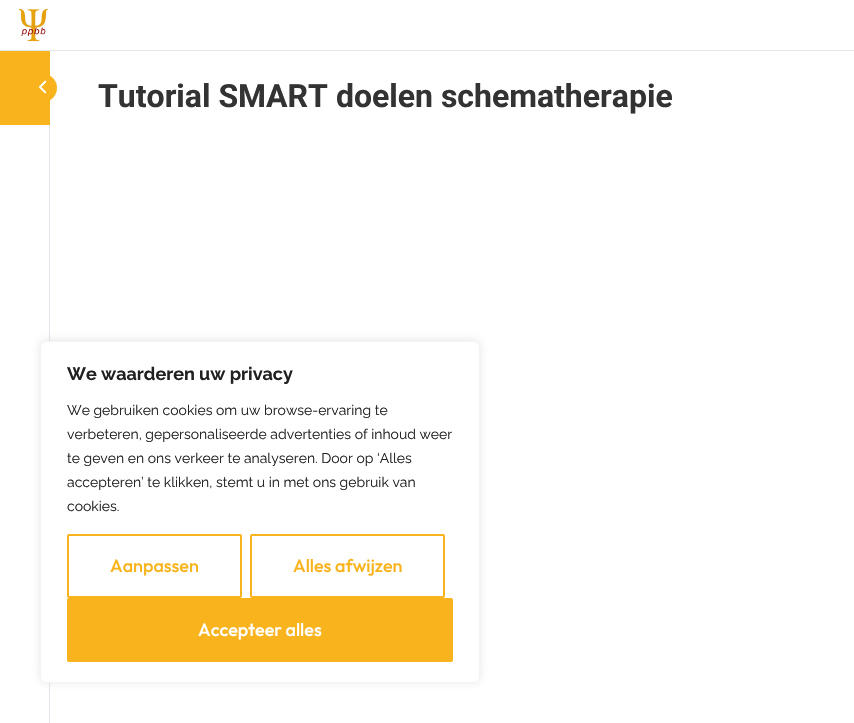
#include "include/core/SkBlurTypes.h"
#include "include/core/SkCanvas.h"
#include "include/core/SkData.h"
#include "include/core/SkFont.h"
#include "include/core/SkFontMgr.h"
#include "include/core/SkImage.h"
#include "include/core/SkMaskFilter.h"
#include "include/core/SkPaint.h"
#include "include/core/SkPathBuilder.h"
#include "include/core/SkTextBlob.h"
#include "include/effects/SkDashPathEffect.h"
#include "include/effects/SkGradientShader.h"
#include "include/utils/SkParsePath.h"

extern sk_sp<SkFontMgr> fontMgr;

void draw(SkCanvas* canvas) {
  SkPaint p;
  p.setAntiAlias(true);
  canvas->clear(SK_ColorWHITE);
  p.setColor(SkColorSetRGB(226, 231, 237));
  canvas->drawRect(SkRect::MakeLTRB(49, 125, 50, 723), p);
  p.setColor(SkColorSetRGB(248, 179, 29));
  canvas->drawRect(SkRect::MakeLTRB(0, 51, 50, 125), p);
  canvas->drawRoundRect(SkRect::MakeLTRB(28, 74, 57, 102), 14, 14, p);
  canvas->drawImageRect(SkImages::DeferredFromEncodedData(SkData::MakeFromFileName("images/1.png")), SkRect::MakeLTRB(39, 80, 47, 94), SkSamplingOptions());
  p.setColor(SkColorSetRGB(226, 231, 237));
  canvas->drawRect(SkRect::MakeLTRB(0, 50, 854, 51), p);
  canvas->drawImageRect(SkImages::DeferredFromEncodedData(SkData::MakeFromFileName("images/2.png")), SkRect::MakeLTRB(18, 8, 48, 42), SkSamplingOptions());
  p.setColor(SkColorSetARGB(77, 172, 171, 171));
  p.setMaskFilter(SkMaskFilter::MakeBlur(kNormal_SkBlurStyle, 5));
  canvas->drawRoundRect(SkRect::MakeLTRB(40, 340, 480, 682), 6, 6, p);
  p.setMaskFilter(nullptr);
  p.setColor(SK_ColorWHITE);
  canvas->drawRoundRect(SkRect::MakeLTRB(40.5f, 341.5f, 479.5f, 682.5f), 5.5f, 5.5f, p);
  p.setStyle(SkPaint::kStroke_Style);
  p.setStrokeWidth(1);
  p.setColor(SkColorSetRGB(244, 244, 244));
  canvas->drawRoundRect(SkRect::MakeLTRB(40.5f, 341.5f, 479.5f, 682.5f), 5.5f, 5.5f, p);
  p.setStrokeWidth(2);
  p.setColor(SkColorSetRGB(248, 179, 29));
  canvas->drawRoundRect(SkRect::MakeLTRB(68, 535, 241, 597), 1, 1, p);
  canvas->drawRoundRect(SkRect::MakeLTRB(251, 535, 444, 597), 1, 1, p);
  p.setStyle(SkPaint::kFill_Style);
  canvas->drawRoundRect(SkRect::MakeLTRB(68, 599, 452, 661), 1, 1, p);
  p.setStyle(SkPaint::kStroke_Style);
  canvas->drawRoundRect(SkRect::MakeLTRB(68, 599, 452, 661), 1, 1, p);
  SkFont font1(fontMgr->matchFamilyStyle("Roboto", SkFontStyle::Bold()), 32);
  font1.setSubpixel(true);
  p.setStyle(SkPaint::kFill_Style);
  p.setColor(SkColorSetRGB(51, 51, 51));
  canvas->drawString("Tutorial SMART doelen schematherapie", 98, 107, font1, p);
  SkFont font2(fontMgr->matchFamilyStyle("Raleway", SkFontStyle::Bold()), 18);
  font2.setSubpixel(true);
  p.setColor(SkColorSetRGB(33, 33, 33));
  canvas->drawString("We waarderen uw privacy", 67, 380, font2, p);
  SkFont font3(fontMgr->matchFamilyStyle("Raleway", SkFontStyle::Normal()), 14);
  font3.setSubpixel(true);
  canvas->drawString("We gebruiken cookies om uw browse-ervaring te", 67, 415, font3, p);
  canvas->drawString("verbeteren, gepersonaliseerde advertenties of inhoud weer", 67, 439, font3, p);
  canvas->drawString("te geven en ons verkeer te analyseren. Door op ‘Alles", 67, 463, font3, p);
  canvas->drawString("accepteren’ te klikken, stemt u in met ons gebruik van", 67, 487, font3, p);
  canvas->drawString("cookies.", 67, 511, font3, p);
  SkFont font4(fontMgr->matchFamilyStyle("Outfit", SkFontStyle(500, SkFontStyle::kNormal_Width, SkFontStyle::kUpright_Slant)), 18);
  font4.setSubpixel(true);
  p.setColor(SkColorSetRGB(248, 179, 29));
  canvas->drawString("Aanpassen", 110, 572, font4, p);
  canvas->drawString("Alles afwijzen", 293, 572, font4, p);
  p.setColor(SK_ColorWHITE);
  canvas->drawString("Accepteer alles", 198, 636, font4, p);
}
